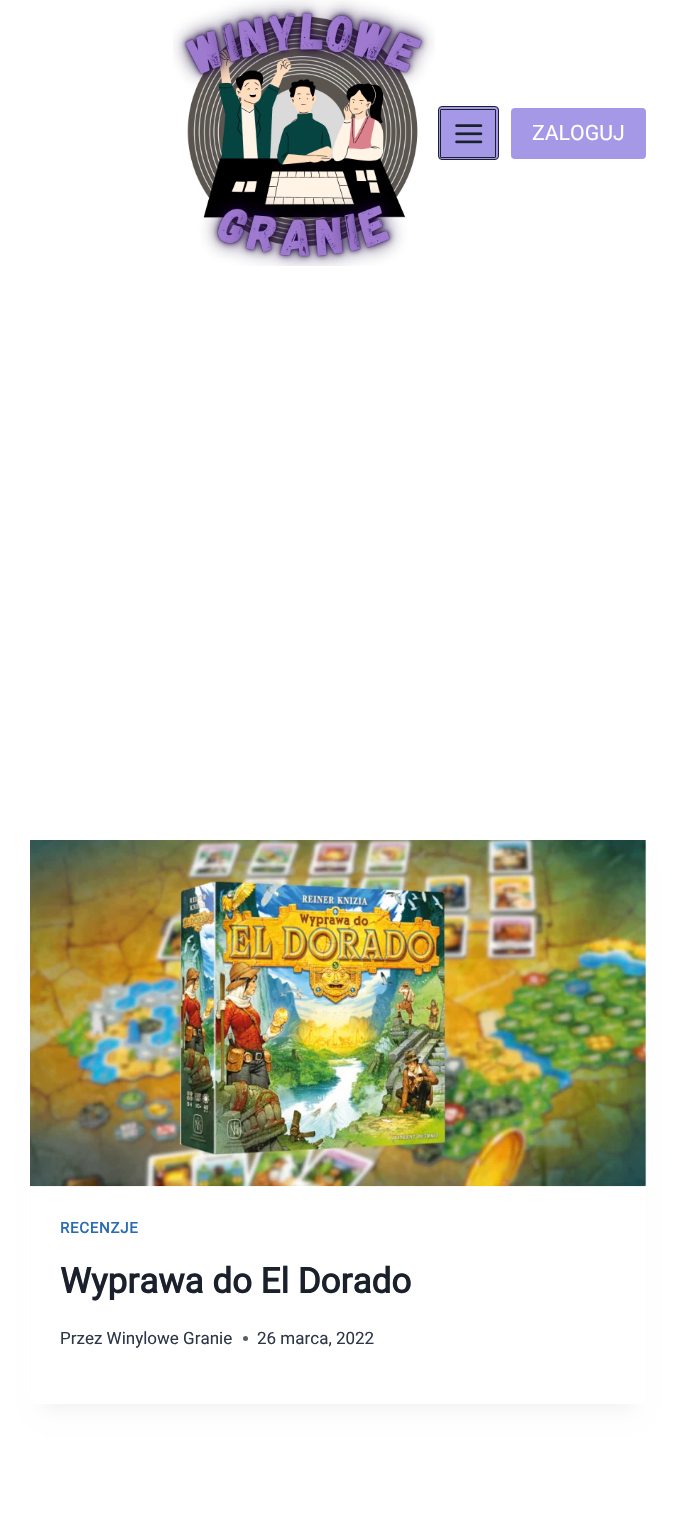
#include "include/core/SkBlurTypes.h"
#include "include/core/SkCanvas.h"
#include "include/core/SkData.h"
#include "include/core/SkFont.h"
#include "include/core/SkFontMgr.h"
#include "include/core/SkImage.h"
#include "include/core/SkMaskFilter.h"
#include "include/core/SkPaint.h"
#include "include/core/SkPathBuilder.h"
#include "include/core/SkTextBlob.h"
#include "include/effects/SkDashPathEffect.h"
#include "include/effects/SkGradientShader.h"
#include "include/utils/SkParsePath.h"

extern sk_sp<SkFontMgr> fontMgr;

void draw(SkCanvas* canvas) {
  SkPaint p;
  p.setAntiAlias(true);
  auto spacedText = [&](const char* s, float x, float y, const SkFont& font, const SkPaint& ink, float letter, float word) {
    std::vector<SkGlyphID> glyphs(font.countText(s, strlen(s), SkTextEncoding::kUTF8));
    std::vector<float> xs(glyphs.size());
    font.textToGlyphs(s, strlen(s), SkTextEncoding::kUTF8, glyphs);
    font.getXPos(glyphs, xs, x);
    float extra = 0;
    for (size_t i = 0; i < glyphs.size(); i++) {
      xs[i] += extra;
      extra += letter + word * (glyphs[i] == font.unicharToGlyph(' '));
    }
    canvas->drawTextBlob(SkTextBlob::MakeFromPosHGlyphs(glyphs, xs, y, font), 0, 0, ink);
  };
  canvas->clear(SK_ColorWHITE);
  canvas->drawImageRect(SkImages::DeferredFromEncodedData(SkData::MakeFromFileName("images/1.png")), SkRect::MakeLTRB(173, 0, 435, 266), SkSamplingOptions());
  p.setColor(SkColorSetRGB(164, 152, 231));
  canvas->drawRoundRect(SkRect::MakeLTRB(438.5f, 106.5f, 498.5f, 159.5f), 3.5f, 3.5f, p);
  p.setStyle(SkPaint::kStroke_Style);
  p.setStrokeWidth(1);
  p.setColor(SkColorSetRGB(26, 32, 44));
  canvas->drawRoundRect(SkRect::MakeLTRB(438.5f, 106.5f, 498.5f, 159.5f), 3.5f, 3.5f, p);
  canvas->drawRoundRect(SkRect::MakeLTRB(440.5f, 109.5f, 495.5f, 157.5f), 0.5f, 0.5f, p);
  canvas->drawImageRect(SkImages::DeferredFromEncodedData(SkData::MakeFromFileName("images/2.png")), SkRect::MakeLTRB(455, 124, 483, 144), SkSamplingOptions());
  p.setStyle(SkPaint::kFill_Style);
  p.setColor(SkColorSetRGB(164, 152, 231));
  canvas->drawRoundRect(SkRect::MakeLTRB(511, 108, 646, 159), 4, 4, p);
  p.setColor(SkColorSetARGB(13, 0, 0, 0));
  p.setMaskFilter(SkMaskFilter::MakeBlur(kNormal_SkBlurStyle, 9.5f));
  canvas->drawRect(SkRect::MakeLTRB(43, 871, 634, 1410), p);
  p.setMaskFilter(nullptr);
  p.setColor(SK_ColorWHITE);
  canvas->drawRoundRect(SkRect::MakeLTRB(30, 840, 646, 1404), 5, 5, p);
  canvas->drawImageRect(SkImages::DeferredFromEncodedData(SkData::MakeFromFileName("images/3.png")), SkRect::MakeLTRB(30, 840, 647, 1187), SkSamplingOptions());
  p.setColor(SkColorSetRGB(87, 95, 109));
  canvas->drawCircle(245.5f, 1338.5f, 2.5f, p);
  SkFont font1(fontMgr->matchFamilyStyle("Roboto", SkFontStyle::Normal()), 21.25f);
  font1.setSubpixel(true);
  p.setColor(SK_ColorWHITE);
  canvas->drawString("ZALOGUJ", 532, 140, font1, p);
  SkFont font2(fontMgr->matchFamilyStyle("Roboto", SkFontStyle::Bold()), 15);
  font2.setSubpixel(true);
  p.setColor(SkColorSetRGB(43, 108, 176));
  spacedText("RECENZJE", 60, 1233, font2, p, 0.75f, 0);
  SkFont font3(fontMgr->matchFamilyStyle("Roboto", SkFontStyle::Bold()), 35);
  font3.setSubpixel(true);
  p.setColor(SkColorSetRGB(26, 32, 44));
  canvas->drawString("Wyprawa do El Dorado", 60, 1293, font3, p);
  SkFont font4(fontMgr->matchFamilyStyle("Roboto", SkFontStyle::Normal()), 17);
  font4.setSubpixel(true);
  p.setColor(SkColorSetRGB(45, 55, 72));
  canvas->drawString("Przez Winylowe Granie", 60, 1344, font4, p);
  canvas->drawString("26 marca, 2022", 257, 1344, font4, p);
}
